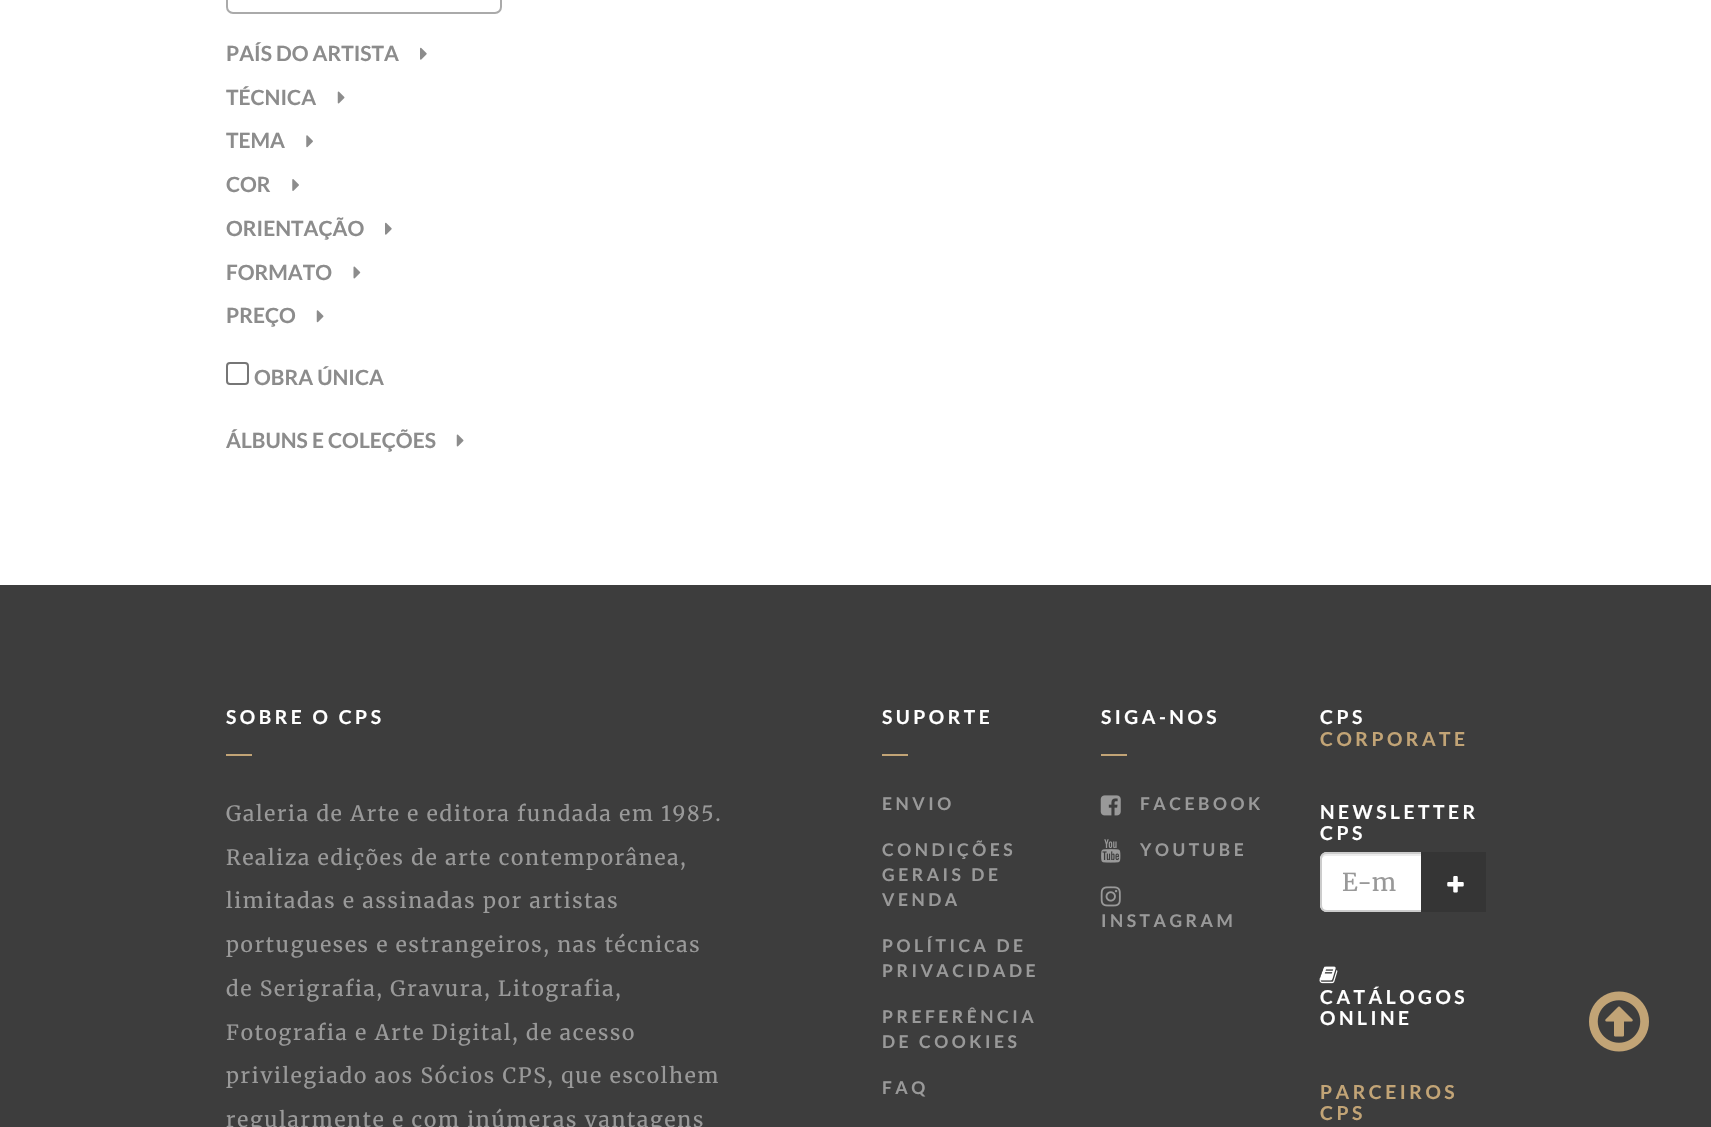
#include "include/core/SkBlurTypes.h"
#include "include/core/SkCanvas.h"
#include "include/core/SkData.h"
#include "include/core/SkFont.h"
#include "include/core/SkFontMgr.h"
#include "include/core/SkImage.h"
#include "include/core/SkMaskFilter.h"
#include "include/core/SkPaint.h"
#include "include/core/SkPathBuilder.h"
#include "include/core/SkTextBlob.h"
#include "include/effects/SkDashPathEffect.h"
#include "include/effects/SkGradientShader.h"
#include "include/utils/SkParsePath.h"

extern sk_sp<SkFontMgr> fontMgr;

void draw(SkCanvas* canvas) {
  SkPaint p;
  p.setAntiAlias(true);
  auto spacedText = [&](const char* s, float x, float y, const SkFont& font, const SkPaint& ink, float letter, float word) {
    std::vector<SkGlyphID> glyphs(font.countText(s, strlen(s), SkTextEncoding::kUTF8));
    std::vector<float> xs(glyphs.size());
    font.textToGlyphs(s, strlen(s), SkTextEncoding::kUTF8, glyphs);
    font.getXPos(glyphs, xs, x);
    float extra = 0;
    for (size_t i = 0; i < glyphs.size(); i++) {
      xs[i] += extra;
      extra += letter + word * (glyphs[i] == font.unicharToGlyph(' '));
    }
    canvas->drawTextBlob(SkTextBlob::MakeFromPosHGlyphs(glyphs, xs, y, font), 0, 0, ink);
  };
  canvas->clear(SK_ColorWHITE);
  p.setStyle(SkPaint::kStroke_Style);
  p.setStrokeWidth(2);
  p.setColor(SkColorSetRGB(170, 170, 170));
  canvas->drawRoundRect(SkRect::MakeLTRB(227, -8, 501, 13), 6, 6, p);
  canvas->drawImageRect(SkImages::DeferredFromEncodedData(SkData::MakeFromFileName("images/1.png")), SkRect::MakeLTRB(420, 47, 427, 60), SkSamplingOptions());
  canvas->drawImageRect(SkImages::DeferredFromEncodedData(SkData::MakeFromFileName("images/2.png")), SkRect::MakeLTRB(337, 91, 345, 104), SkSamplingOptions());
  canvas->drawImageRect(SkImages::DeferredFromEncodedData(SkData::MakeFromFileName("images/3.png")), SkRect::MakeLTRB(306, 135, 313, 148), SkSamplingOptions());
  canvas->drawImageRect(SkImages::DeferredFromEncodedData(SkData::MakeFromFileName("images/4.png")), SkRect::MakeLTRB(292, 179, 299, 191), SkSamplingOptions());
  canvas->drawImageRect(SkImages::DeferredFromEncodedData(SkData::MakeFromFileName("images/1.png")), SkRect::MakeLTRB(385, 222, 392, 235), SkSamplingOptions());
  canvas->drawImageRect(SkImages::DeferredFromEncodedData(SkData::MakeFromFileName("images/5.png")), SkRect::MakeLTRB(353, 266, 361, 279), SkSamplingOptions());
  canvas->drawImageRect(SkImages::DeferredFromEncodedData(SkData::MakeFromFileName("images/6.png")), SkRect::MakeLTRB(316, 310, 324, 323), SkSamplingOptions());
  p.setColor(SkColorSetRGB(118, 118, 118));
  canvas->drawRoundRect(SkRect::MakeLTRB(227, 363, 248, 384), 3, 3, p);
  canvas->drawImageRect(SkImages::DeferredFromEncodedData(SkData::MakeFromFileName("images/2.png")), SkRect::MakeLTRB(456, 434, 464, 447), SkSamplingOptions());
  p.setStyle(SkPaint::kFill_Style);
  p.setColor(SkColorSetRGB(61, 61, 61));
  canvas->drawRect(SkRect::MakeLTRB(0, 585, 1711, 1127), p);
  p.setColor(SkColorSetRGB(194, 164, 118));
  canvas->drawRect(SkRect::MakeLTRB(226, 754, 252, 756), p);
  canvas->drawRect(SkRect::MakeLTRB(882, 754, 908, 756), p);
  canvas->drawRect(SkRect::MakeLTRB(1101, 754, 1127, 756), p);
  canvas->drawImageRect(SkImages::DeferredFromEncodedData(SkData::MakeFromFileName("images/7.png")), SkRect::MakeLTRB(1100, 795, 1121, 816), SkSamplingOptions());
  canvas->drawImageRect(SkImages::DeferredFromEncodedData(SkData::MakeFromFileName("images/8.png")), SkRect::MakeLTRB(1101, 839, 1121, 863), SkSamplingOptions());
  canvas->drawImageRect(SkImages::DeferredFromEncodedData(SkData::MakeFromFileName("images/9.png")), SkRect::MakeLTRB(1100, 886, 1121, 907), SkSamplingOptions());
  p.setColor(SK_ColorWHITE);
  canvas->drawPath(SkPathBuilder().moveTo(1327, 852).lineTo(1423, 852).lineTo(1423, 912).lineTo(1327, 912).cubicTo(1323, 912, 1320, 909, 1320, 905).lineTo(1320, 859).cubicTo(1320, 855, 1323, 852, 1327, 852).close().detach(), p);
  p.setColor(SkColorSetRGB(236, 236, 236));
  canvas->drawPath(SkPathBuilder().moveTo(1326, 856).lineTo(1421, 856).lineTo(1421, 854).lineTo(1326, 854).cubicTo(1323, 854, 1321, 856, 1321, 859).lineTo(1321, 861).cubicTo(1321, 858, 1324, 856, 1326, 856).close().detach(), p);
  p.setStyle(SkPaint::kStroke_Style);
  p.setColor(SkColorSetRGB(204, 204, 204));
  canvas->drawPath(SkPathBuilder().moveTo(1327, 853).lineTo(1422, 853).lineTo(1422, 911).lineTo(1327, 911).cubicTo(1323.5f, 911, 1321, 908.5f, 1321, 905).lineTo(1321, 859).cubicTo(1321, 855.5f, 1323.5f, 853, 1327, 853).close().detach(), p);
  p.setStyle(SkPaint::kFill_Style);
  p.setColor(SkColorSetRGB(53, 53, 53));
  canvas->drawRect(SkRect::MakeLTRB(1421, 852, 1486, 912), p);
  canvas->drawImageRect(SkImages::DeferredFromEncodedData(SkData::MakeFromFileName("images/10.png")), SkRect::MakeLTRB(1447, 876, 1464, 893), SkSamplingOptions());
  canvas->drawImageRect(SkImages::DeferredFromEncodedData(SkData::MakeFromFileName("images/11.png")), SkRect::MakeLTRB(1319, 966, 1338, 984), SkSamplingOptions());
  canvas->drawImageRect(SkImages::DeferredFromEncodedData(SkData::MakeFromFileName("images/12.png")), SkRect::MakeLTRB(1589, 991, 1649, 1052), SkSamplingOptions());
  SkFont font1(fontMgr->matchFamilyStyle("Lato", SkFontStyle::Bold()), 21);
  font1.setSubpixel(true);
  p.setColor(SkColorSetRGB(140, 140, 140));
  canvas->drawString("PAÍS DO ARTISTA", 226, 61, font1, p);
  canvas->drawString("TÉCNICA", 226, 105, font1, p);
  canvas->drawString("TEMA", 226, 148, font1, p);
  canvas->drawString("COR", 226, 192, font1, p);
  canvas->drawString("ORIENTAÇÃO", 226, 236, font1, p);
  canvas->drawString("FORMATO", 226, 280, font1, p);
  canvas->drawString("PREÇO", 226, 323, font1, p);
  canvas->drawString("OBRA ÚNICA", 254, 385, font1, p);
  canvas->drawString("ÁLBUNS E COLEÇÕES", 226, 448, font1, p);
  SkFont font2(fontMgr->matchFamilyStyle("Lato", SkFontStyle::Bold()), 19.25f);
  font2.setSubpixel(true);
  p.setColor(SK_ColorWHITE);
  spacedText("SOBRE O CPS", 226, 724, font2, p, 3.5f, 0);
  SkFont font3(fontMgr->matchFamilyStyle("Merriweather", SkFontStyle::Normal()), 21);
  font3.setSubpixel(true);
  p.setColor(SkColorSetRGB(153, 153, 153));
  spacedText("Galeria de Arte e editora fundada em 1985.", 226, 821, font3, p, 1.75f, 0);
  spacedText("Realiza edições de arte contemporânea,", 226, 865, font3, p, 1.75f, 0);
  spacedText("limitadas e assinadas por artistas", 226, 908, font3, p, 1.75f, 0);
  spacedText("portugueses e estrangeiros, nas técnicas", 226, 952, font3, p, 1.75f, 0);
  spacedText("de Serigrafia, Gravura, Litografia,", 226, 996, font3, p, 1.75f, 0);
  spacedText("Fotografia e Arte Digital, de acesso", 226, 1040, font3, p, 1.75f, 0);
  spacedText("privilegiado aos Sócios CPS, que escolhem", 226, 1083, font3, p, 1.75f, 0);
  spacedText("regularmente e com inúmeras vantagens", 226, 1127, font3, p, 1.75f, 0);
  p.setColor(SK_ColorWHITE);
  spacedText("SUPORTE", 882, 724, font2, p, 3.5f, 0);
  SkFont font4(fontMgr->matchFamilyStyle("Lato", SkFontStyle::Bold()), 17.5f);
  font4.setSubpixel(true);
  p.setColor(SkColorSetRGB(153, 153, 153));
  spacedText("ENVIO", 882, 810, font4, p, 3.5f, 0);
  spacedText("CONDIÇÕES", 882, 856, font4, p, 3.5f, 0);
  spacedText("GERAIS DE", 882, 881, font4, p, 3.5f, 0);
  spacedText("VENDA", 882, 906, font4, p, 3.5f, 0);
  spacedText("POLÍTICA DE", 882, 952, font4, p, 3.5f, 0);
  spacedText("PRIVACIDADE", 882, 977, font4, p, 3.5f, 0);
  spacedText("PREFERÊNCIA", 882, 1023, font4, p, 3.5f, 0);
  spacedText("DE COOKIES", 882, 1048, font4, p, 3.5f, 0);
  spacedText("FAQ", 882, 1094, font4, p, 3.5f, 0);
  p.setColor(SK_ColorWHITE);
  spacedText("SIGA-NOS", 1101, 724, font2, p, 3.5f, 0);
  p.setColor(SkColorSetRGB(153, 153, 153));
  spacedText("FACEBOOK", 1140, 810, font4, p, 3.5f, 0);
  spacedText("YOUTUBE", 1140, 856, font4, p, 3.5f, 0);
  spacedText("INSTAGRAM", 1101, 927, font4, p, 3.5f, 0);
  p.setColor(SK_ColorWHITE);
  spacedText("CPS", 1320, 724, font2, p, 3.5f, 0);
  p.setColor(SkColorSetRGB(194, 164, 118));
  spacedText("CORPORATE", 1320, 746, font2, p, 3.5f, 0);
  p.setColor(SK_ColorWHITE);
  spacedText("NEWSLETTER", 1320, 819, font2, p, 3.5f, 0);
  spacedText("CPS", 1320, 840, font2, p, 3.5f, 0);
  SkFont font5(fontMgr->matchFamilyStyle("Merriweather", SkFontStyle::Normal()), 24.5f);
  font5.setSubpixel(true);
  p.setColor(SkColorSetRGB(153, 153, 153));
  canvas->drawString("E-m", 1342, 891, font5, p);
  p.setColor(SK_ColorWHITE);
  spacedText("CATÁLOGOS", 1320, 1004, font2, p, 3.5f, 0);
  spacedText("ONLINE", 1320, 1025, font2, p, 3.5f, 0);
  p.setColor(SkColorSetRGB(194, 164, 118));
  spacedText("PARCEIROS", 1320, 1099, font2, p, 3.5f, 0);
  spacedText("CPS", 1320, 1120, font2, p, 3.5f, 0);
}
